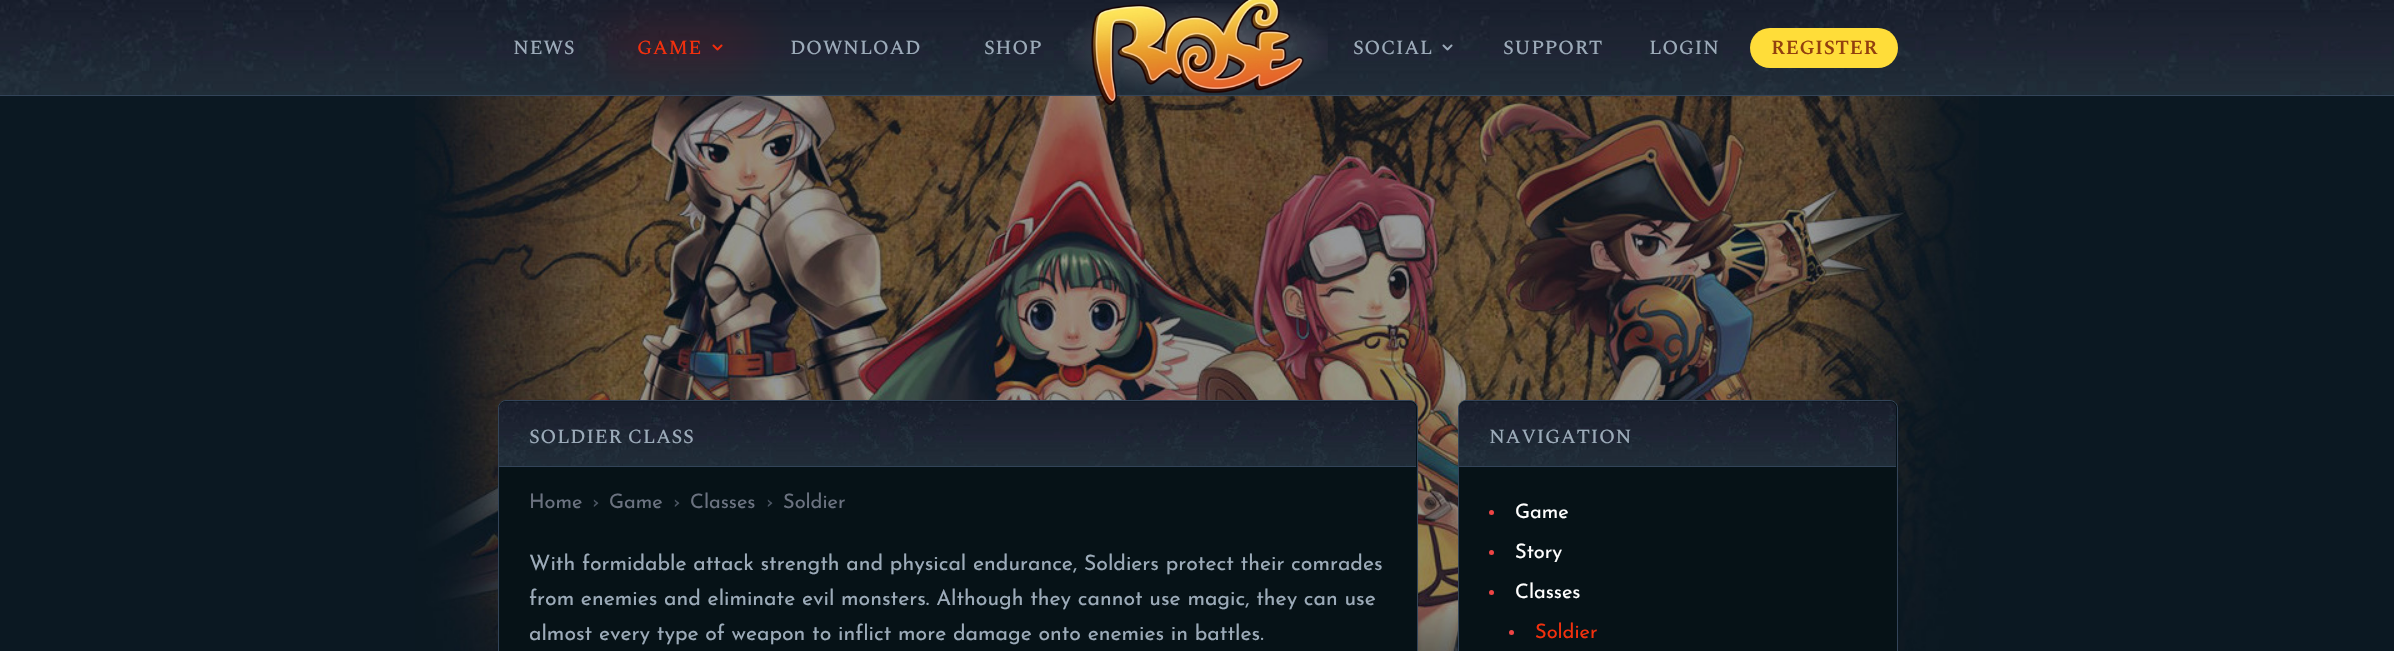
#include "include/core/SkBlurTypes.h"
#include "include/core/SkCanvas.h"
#include "include/core/SkData.h"
#include "include/core/SkFont.h"
#include "include/core/SkFontMgr.h"
#include "include/core/SkImage.h"
#include "include/core/SkMaskFilter.h"
#include "include/core/SkPaint.h"
#include "include/core/SkPathBuilder.h"
#include "include/core/SkTextBlob.h"
#include "include/effects/SkDashPathEffect.h"
#include "include/effects/SkGradientShader.h"
#include "include/utils/SkParsePath.h"

extern sk_sp<SkFontMgr> fontMgr;

void draw(SkCanvas* canvas) {
  SkPaint p;
  p.setAntiAlias(true);
  auto spacedText = [&](const char* s, float x, float y, const SkFont& font, const SkPaint& ink, float letter, float word) {
    std::vector<SkGlyphID> glyphs(font.countText(s, strlen(s), SkTextEncoding::kUTF8));
    std::vector<float> xs(glyphs.size());
    font.textToGlyphs(s, strlen(s), SkTextEncoding::kUTF8, glyphs);
    font.getXPos(glyphs, xs, x);
    float extra = 0;
    for (size_t i = 0; i < glyphs.size(); i++) {
      xs[i] += extra;
      extra += letter + word * (glyphs[i] == font.unicharToGlyph(' '));
    }
    canvas->drawTextBlob(SkTextBlob::MakeFromPosHGlyphs(glyphs, xs, y, font), 0, 0, ink);
  };
  canvas->clear(SkColorSetRGB(11, 24, 34));
  canvas->drawImageRect(SkImages::DeferredFromEncodedData(SkData::MakeFromFileName("images/1.png")), SkRect::MakeLTRB(415, 94, 1979, 651), SkSamplingOptions());
  canvas->drawImageRect(SkImages::DeferredFromEncodedData(SkData::MakeFromFileName("images/2.png")), SkRect::MakeLTRB(0, 0, 2394, 95), SkSamplingOptions());
  p.setColor(SkColorSetRGB(51, 68, 89));
  canvas->drawRect(SkRect::MakeLTRB(0, 95, 2394, 96), p);
  canvas->drawImageRect(SkImages::DeferredFromEncodedData(SkData::MakeFromFileName("images/3.png")), SkRect::MakeLTRB(712, 44, 723, 51), SkSamplingOptions());
  p.setColor(SkColorSetARGB(51, 255, 0, 0));
  p.setMaskFilter(SkMaskFilter::MakeBlur(kNormal_SkBlurStyle, 25));
  canvas->drawRect(SkRect::MakeLTRB(610, 33, 755, 58), p);
  p.setMaskFilter(nullptr);
  {
    const SkColor colors[] = {SkColorSetARGB(77, 255, 255, 255), SkColorSetARGB(0, 255, 255, 255)};
    const float stops[] = {0, 1};
    SkMatrix m = SkMatrix::Translate(1198, 48).preScale(140, 48);
    p.setShader(SkGradientShader::MakeRadial({0, 0}, 1, colors, stops, 2, SkTileMode::kClamp, 0, &m));
    p.setAlpha(255);
  }
  canvas->drawRect(SkRect::MakeLTRB(1068, 3, 1328, 93), p);
  canvas->drawImageRect(SkImages::DeferredFromEncodedData(SkData::MakeFromFileName("images/4.png")), SkRect::MakeLTRB(1091, 0, 1304, 106), SkSamplingOptions());
  canvas->drawImageRect(SkImages::DeferredFromEncodedData(SkData::MakeFromFileName("images/5.png")), SkRect::MakeLTRB(1442, 44, 1453, 51), SkSamplingOptions());
  p.setShader(nullptr);
  p.setColor(SkColorSetRGB(255, 221, 57));
  canvas->drawRoundRect(SkRect::MakeLTRB(1750, 28, 1898, 68), 20, 20, p);
  p.setColor(SkColorSetRGB(6, 18, 23));
  canvas->drawPath(SkPathBuilder().moveTo(506, 400.5f).lineTo(1410, 400.5f).cubicTo(1414, 400.5f, 1417.5f, 404, 1417.5f, 408).lineTo(1417.5f, 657.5f).cubicTo(1417.5f, 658.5f, 1416.5f, 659.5f, 1415.5f, 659.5f).lineTo(500.5f, 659.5f).cubicTo(499.5f, 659.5f, 498.5f, 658.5f, 498.5f, 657.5f).lineTo(498.5f, 408).cubicTo(498.5f, 404, 502, 400.5f, 506, 400.5f).close().detach(), p);
  p.setStyle(SkPaint::kStroke_Style);
  p.setStrokeWidth(1);
  p.setColor(SkColorSetRGB(51, 68, 89));
  canvas->drawPath(SkPathBuilder().moveTo(506, 400.5f).lineTo(1410, 400.5f).cubicTo(1414, 400.5f, 1417.5f, 404, 1417.5f, 408).lineTo(1417.5f, 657.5f).cubicTo(1417.5f, 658.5f, 1416.5f, 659.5f, 1415.5f, 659.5f).lineTo(500.5f, 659.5f).cubicTo(499.5f, 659.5f, 498.5f, 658.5f, 498.5f, 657.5f).lineTo(498.5f, 408).cubicTo(498.5f, 404, 502, 400.5f, 506, 400.5f).close().detach(), p);
  canvas->drawImageRect(SkImages::DeferredFromEncodedData(SkData::MakeFromFileName("images/6.png")), SkRect::MakeLTRB(499, 401, 1416, 466), SkSamplingOptions());
  p.setStyle(SkPaint::kFill_Style);
  canvas->drawRect(SkRect::MakeLTRB(499, 466, 1416, 467), p);
  p.setColor(SkColorSetRGB(6, 18, 23));
  canvas->drawPath(SkPathBuilder().moveTo(1466, 400.5f).lineTo(1890, 400.5f).cubicTo(1894, 400.5f, 1897.5f, 404, 1897.5f, 408).lineTo(1897.5f, 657.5f).cubicTo(1897.5f, 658.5f, 1896.5f, 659.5f, 1895.5f, 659.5f).lineTo(1460.5f, 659.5f).cubicTo(1459.5f, 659.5f, 1458.5f, 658.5f, 1458.5f, 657.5f).lineTo(1458.5f, 408).cubicTo(1458.5f, 404, 1462, 400.5f, 1466, 400.5f).close().detach(), p);
  p.setStyle(SkPaint::kStroke_Style);
  p.setColor(SkColorSetRGB(51, 68, 89));
  canvas->drawPath(SkPathBuilder().moveTo(1466, 400.5f).lineTo(1890, 400.5f).cubicTo(1894, 400.5f, 1897.5f, 404, 1897.5f, 408).lineTo(1897.5f, 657.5f).cubicTo(1897.5f, 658.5f, 1896.5f, 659.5f, 1895.5f, 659.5f).lineTo(1460.5f, 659.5f).cubicTo(1459.5f, 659.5f, 1458.5f, 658.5f, 1458.5f, 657.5f).lineTo(1458.5f, 408).cubicTo(1458.5f, 404, 1462, 400.5f, 1466, 400.5f).close().detach(), p);
  canvas->drawImageRect(SkImages::DeferredFromEncodedData(SkData::MakeFromFileName("images/7.png")), SkRect::MakeLTRB(1459, 401, 1896, 466), SkSamplingOptions());
  p.setStyle(SkPaint::kFill_Style);
  canvas->drawRect(SkRect::MakeLTRB(1459, 466, 1896, 467), p);
  p.setColor(SkColorSetRGB(239, 68, 68));
  canvas->drawCircle(1491.5f, 512.5f, 2.5f, p);
  canvas->drawCircle(1491.5f, 552.5f, 2.5f, p);
  canvas->drawCircle(1491.5f, 592.5f, 2.5f, p);
  canvas->drawCircle(1511.5f, 632.5f, 2.5f, p);
  SkFont font1(fontMgr->matchFamilyStyle("Spectral SC", SkFontStyle(500, SkFontStyle::kNormal_Width, SkFontStyle::kUpright_Slant)), 20);
  font1.setSubpixel(true);
  p.setColor(SkColorSetRGB(156, 171, 185));
  spacedText("NEWS", 513, 54, font1, p, 0.5f, 0);
  p.setColor(SkColorSetRGB(242, 48, 13));
  spacedText("GAME", 637, 54, font1, p, 0.5f, 0);
  p.setColor(SkColorSetRGB(156, 171, 185));
  spacedText("DOWNLOAD", 790, 54, font1, p, 0.5f, 0);
  spacedText("SHOP", 984, 54, font1, p, 0.5f, 0);
  spacedText("SOCIAL", 1353, 54, font1, p, 0.5f, 0);
  spacedText("SUPPORT", 1503, 54, font1, p, 0.5f, 0);
  spacedText("LOGIN", 1649, 54, font1, p, 0.5f, 0);
  SkFont font2(fontMgr->matchFamilyStyle("Spectral SC", SkFontStyle(600, SkFontStyle::kNormal_Width, SkFontStyle::kUpright_Slant)), 20);
  font2.setSubpixel(true);
  p.setColor(SkColorSetRGB(146, 64, 14));
  spacedText("REGISTER", 1771, 54, font2, p, 0.5f, 0);
  p.setColor(SkColorSetRGB(156, 171, 185));
  spacedText("SOLDIER CLASS", 529, 443, font1, p, 0.5f, 0);
  SkFont font3(fontMgr->matchFamilyStyle("Josefin Sans", SkFontStyle(100, SkFontStyle::kNormal_Width, SkFontStyle::kUpright_Slant)), 20);
  font3.setSubpixel(true);
  p.setColor(SkColorSetRGB(107, 114, 128));
  canvas->drawString("Home", 529, 508, font3, p);
  p.setColor(SkColorSetRGB(75, 85, 99));
  canvas->drawString("›", 592, 508, font3, p);
  p.setColor(SkColorSetRGB(107, 114, 128));
  canvas->drawString("Game", 609, 508, font3, p);
  p.setColor(SkColorSetRGB(75, 85, 99));
  canvas->drawString("›", 673, 508, font3, p);
  p.setColor(SkColorSetRGB(107, 114, 128));
  canvas->drawString("Classes", 690, 508, font3, p);
  p.setColor(SkColorSetRGB(75, 85, 99));
  canvas->drawString("›", 766, 508, font3, p);
  p.setColor(SkColorSetRGB(107, 114, 128));
  canvas->drawString("Soldier", 783, 508, font3, p);
  SkFont font4(fontMgr->matchFamilyStyle("Josefin Sans", SkFontStyle(100, SkFontStyle::kNormal_Width, SkFontStyle::kUpright_Slant)), 21.25f);
  font4.setSubpixel(true);
  p.setColor(SkColorSetRGB(156, 171, 185));
  canvas->drawString("With formidable attack strength and physical endurance, Soldiers protect their comrades", 529, 570, font4, p);
  canvas->drawString("from enemies and eliminate evil monsters. Although they cannot use magic, they can use", 529, 605, font4, p);
  canvas->drawString("almost every type of weapon to inflict more damage onto enemies in battles.", 529, 640, font4, p);
  spacedText("NAVIGATION", 1489, 443, font1, p, 0.5f, 0);
  p.setColor(SK_ColorWHITE);
  canvas->drawString("Game", 1515, 518, font3, p);
  canvas->drawString("Story", 1515, 558, font3, p);
  canvas->drawString("Classes", 1515, 598, font3, p);
  p.setColor(SkColorSetRGB(242, 48, 13));
  canvas->drawString("Soldier", 1535, 638, font3, p);
}
